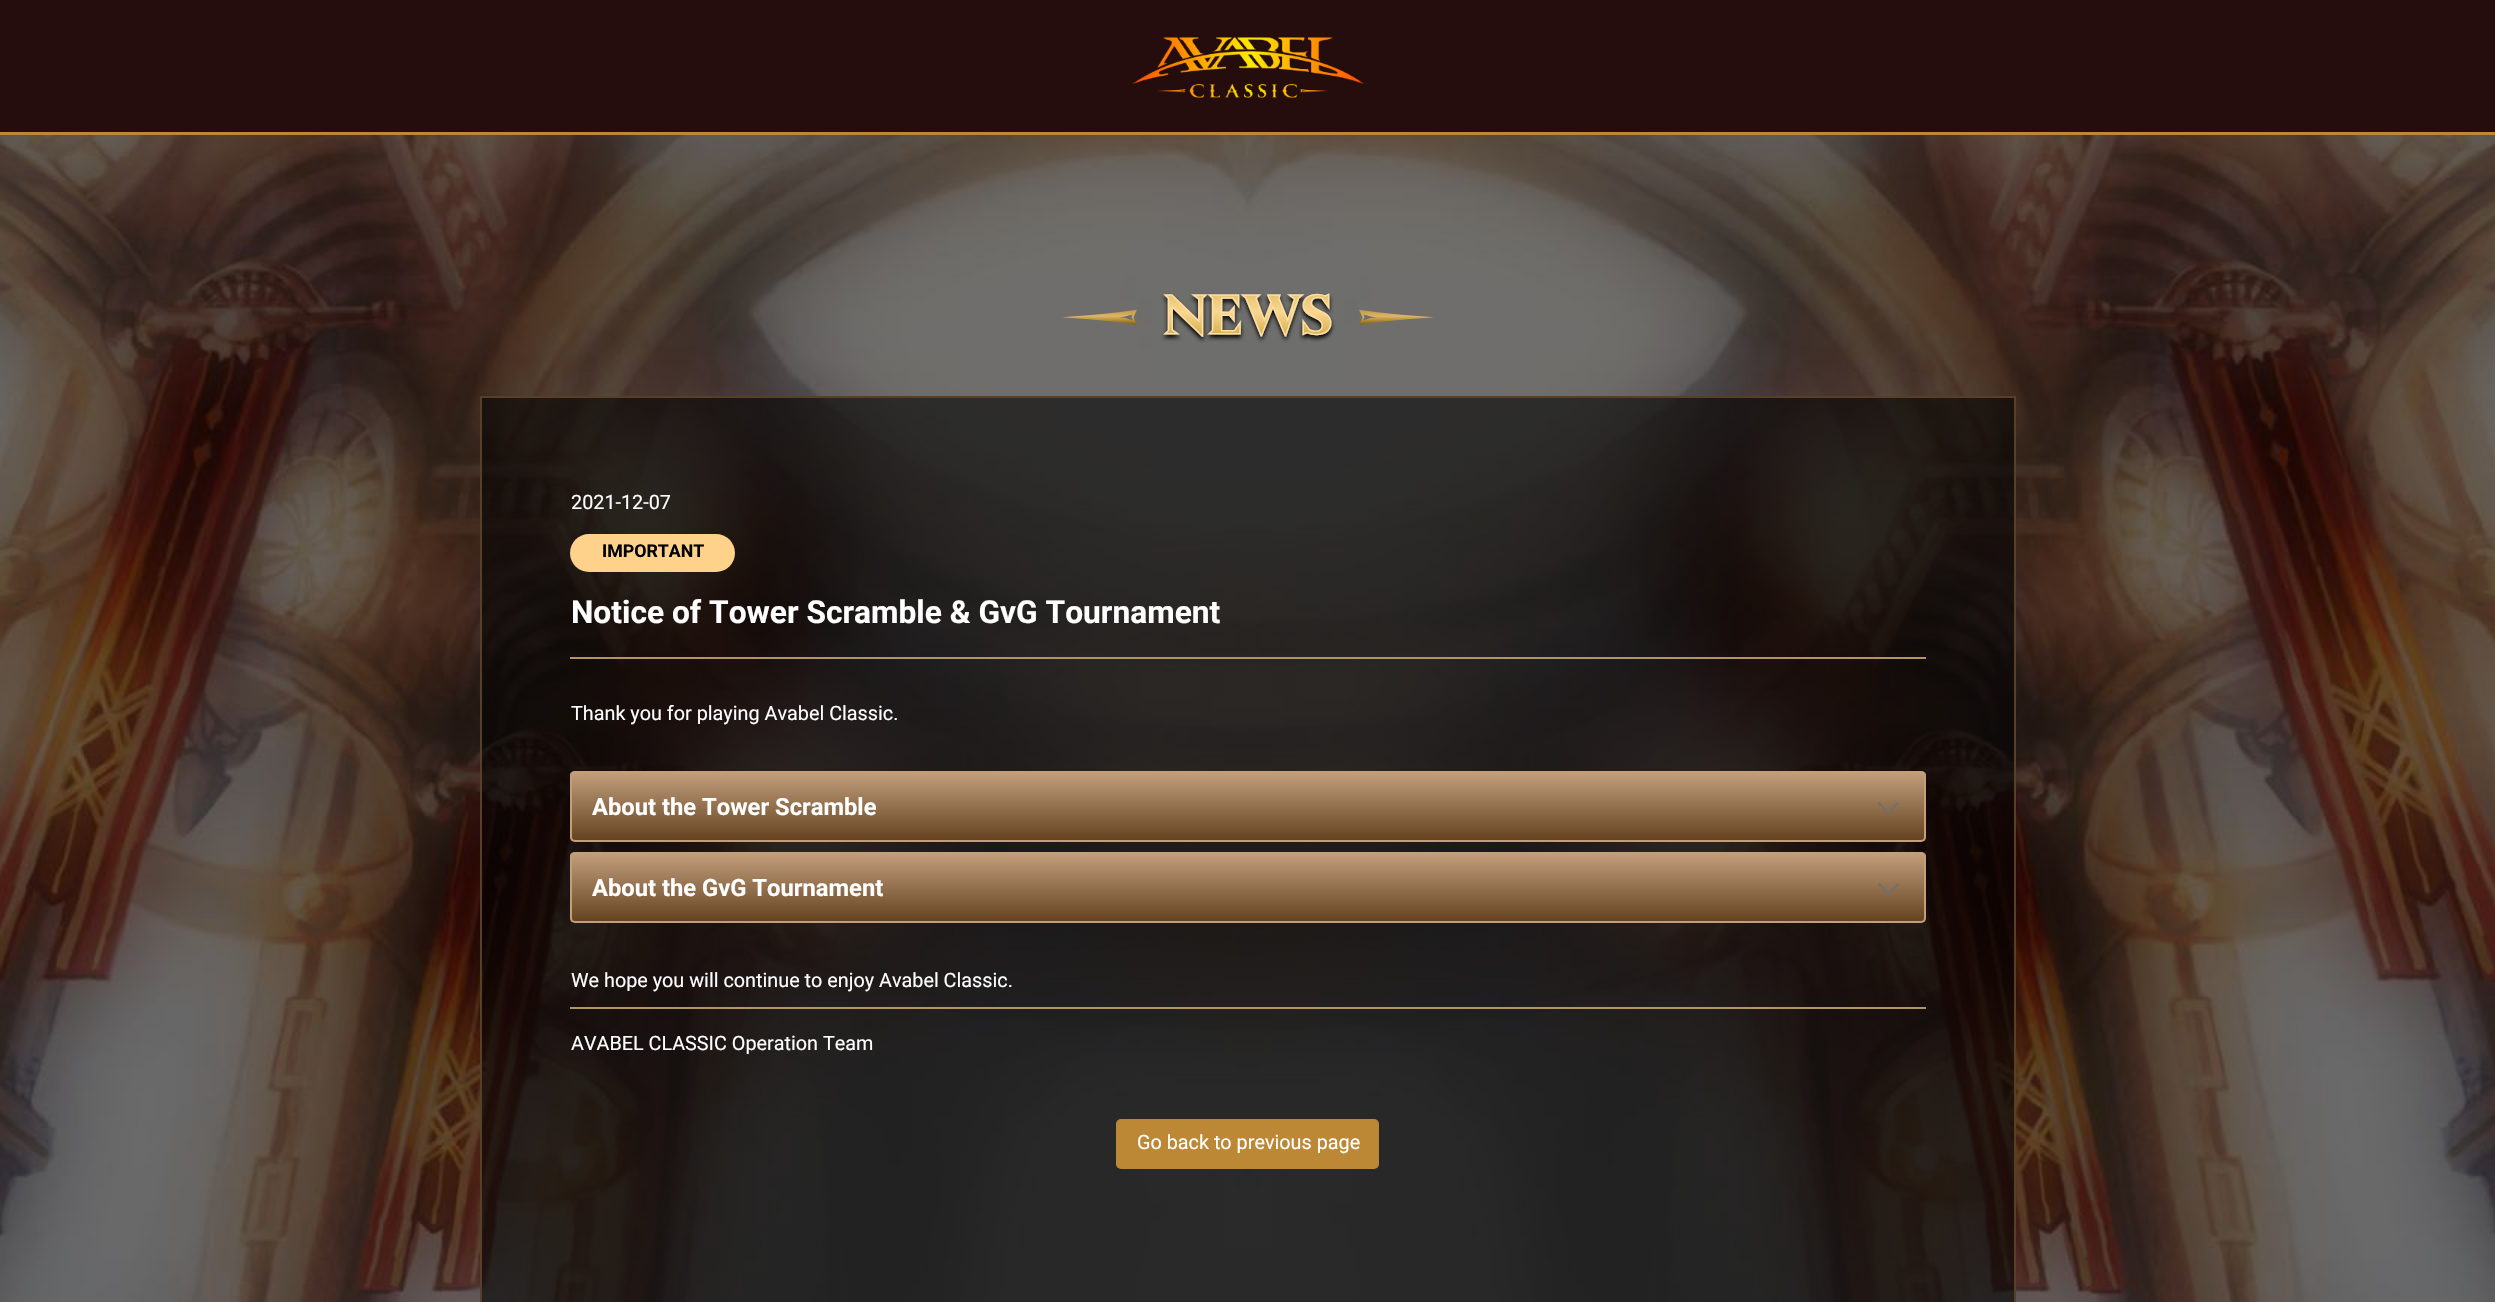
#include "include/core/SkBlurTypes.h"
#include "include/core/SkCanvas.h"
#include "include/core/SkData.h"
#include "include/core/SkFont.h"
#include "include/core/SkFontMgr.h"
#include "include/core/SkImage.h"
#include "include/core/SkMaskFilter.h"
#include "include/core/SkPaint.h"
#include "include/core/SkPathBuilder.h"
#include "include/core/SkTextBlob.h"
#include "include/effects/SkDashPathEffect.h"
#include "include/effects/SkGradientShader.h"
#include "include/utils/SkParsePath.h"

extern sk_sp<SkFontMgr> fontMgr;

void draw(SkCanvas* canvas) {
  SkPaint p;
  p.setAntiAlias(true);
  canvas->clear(SkColorSetRGB(38, 13, 13));
  p.setColor(SkColorSetRGB(188, 136, 53));
  canvas->drawRect(SkRect::MakeLTRB(0, 132, 2495, 135), p);
  canvas->drawImageRect(SkImages::DeferredFromEncodedData(SkData::MakeFromFileName("images/1.png")), SkRect::MakeLTRB(1132, 37, 1364, 98), SkSamplingOptions());
  canvas->drawImageRect(SkImages::DeferredFromEncodedData(SkData::MakeFromFileName("images/2.png")), SkRect::MakeLTRB(0, 135, 2495, 1302), SkSamplingOptions());
  canvas->drawImageRect(SkImages::DeferredFromEncodedData(SkData::MakeFromFileName("images/3.png")), SkRect::MakeLTRB(1062, 293, 1434, 343), SkSamplingOptions());
  p.setColor(SkColorSetARGB(153, 0, 0, 0));
  canvas->drawRect(SkRect::MakeLTRB(481, 397, 2015, 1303), p);
  p.setStyle(SkPaint::kStroke_Style);
  p.setStrokeWidth(2);
  p.setColor(SkColorSetRGB(87, 64, 42));
  canvas->drawRect(SkRect::MakeLTRB(481, 397, 2015, 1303), p);
  p.setStyle(SkPaint::kFill_Style);
  p.setColor(SkColorSetRGB(255, 210, 139));
  canvas->drawRoundRect(SkRect::MakeLTRB(570, 534, 735, 572), 19, 19, p);
  p.setColor(SkColorSetRGB(181, 148, 99));
  canvas->drawRect(SkRect::MakeLTRB(570, 657, 1926, 659), p);
  canvas->drawImageRect(SkImages::DeferredFromEncodedData(SkData::MakeFromFileName("images/4.png")), SkRect::MakeLTRB(570, 771, 1926, 842), SkSamplingOptions());
  p.setStyle(SkPaint::kStroke_Style);
  p.setColor(SkColorSetRGB(194, 158, 123));
  canvas->drawRoundRect(SkRect::MakeLTRB(571, 772, 1925, 841), 4, 4, p);
  canvas->drawImageRect(SkImages::DeferredFromEncodedData(SkData::MakeFromFileName("images/5.png")), SkRect::MakeLTRB(570, 852, 1926, 923), SkSamplingOptions());
  canvas->drawRoundRect(SkRect::MakeLTRB(571, 853, 1925, 922), 4, 4, p);
  p.setStyle(SkPaint::kFill_Style);
  p.setColor(SkColorSetRGB(181, 148, 99));
  canvas->drawRect(SkRect::MakeLTRB(570, 1007, 1926, 1009), p);
  p.setColor(SkColorSetRGB(188, 136, 53));
  canvas->drawRoundRect(SkRect::MakeLTRB(1116, 1119, 1379, 1169), 5, 5, p);
  SkFont font1(fontMgr->matchFamilyStyle("Roboto", SkFontStyle::Normal()), 19.8f);
  font1.setSubpixel(true);
  p.setColor(SK_ColorWHITE);
  canvas->drawString("2021-12-07", 571, 509, font1, p);
  SkFont font2(fontMgr->matchFamilyStyle("Roboto", SkFontStyle::Bold()), 17.75f);
  font2.setSubpixel(true);
  p.setColor(SK_ColorBLACK);
  canvas->drawString("IMPORTANT", 602, 557, font2, p);
  SkFont font3(fontMgr->matchFamilyStyle("Roboto", SkFontStyle::Bold()), 31.7f);
  font3.setSubpixel(true);
  p.setColor(SK_ColorWHITE);
  canvas->drawString("Notice of Tower Scramble & GvG Tournament", 571, 623, font3, p);
  canvas->drawString("Thank you for playing Avabel Classic.", 571, 720, font1, p);
  SkFont font4(fontMgr->matchFamilyStyle("Roboto", SkFontStyle::Bold()), 23.75f);
  font4.setSubpixel(true);
  canvas->drawString("About the Tower Scramble", 592, 815, font4, p);
  canvas->drawString("About the GvG Tournament", 592, 896, font4, p);
  canvas->drawString("We hope you will continue to enjoy Avabel Classic.", 571, 987, font1, p);
  canvas->drawString("AVABEL CLASSIC Operation Team", 571, 1050, font1, p);
  canvas->drawString("Go back to previous page", 1137, 1149, font1, p);
}
